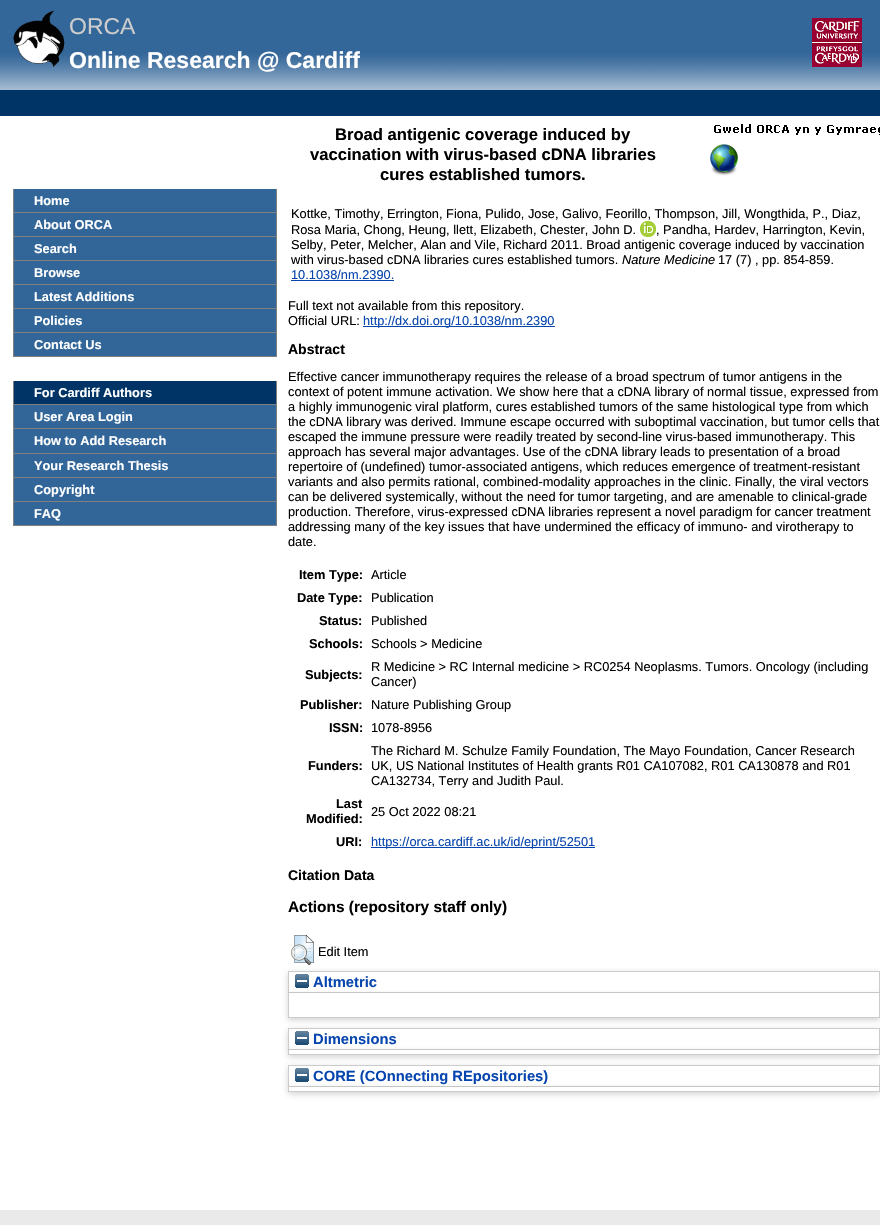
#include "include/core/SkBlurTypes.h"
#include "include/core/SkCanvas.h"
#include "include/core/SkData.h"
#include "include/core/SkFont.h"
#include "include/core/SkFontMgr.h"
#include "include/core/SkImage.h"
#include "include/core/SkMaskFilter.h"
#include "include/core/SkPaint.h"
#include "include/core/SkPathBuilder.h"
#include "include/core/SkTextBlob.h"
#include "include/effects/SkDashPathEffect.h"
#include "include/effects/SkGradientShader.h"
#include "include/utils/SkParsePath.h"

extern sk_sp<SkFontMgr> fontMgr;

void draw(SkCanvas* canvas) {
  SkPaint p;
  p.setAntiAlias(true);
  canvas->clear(SkColorSetRGB(234, 234, 234));
  p.setColor(SK_ColorWHITE);
  canvas->drawRect(SkRect::MakeLTRB(0, 116, 880, 1210), p);
  canvas->drawImageRect(SkImages::DeferredFromEncodedData(SkData::MakeFromFileName("images/1.png")), SkRect::MakeLTRB(0, 0, 880, 90), SkSamplingOptions());
  canvas->drawImageRect(SkImages::DeferredFromEncodedData(SkData::MakeFromFileName("images/2.png")), SkRect::MakeLTRB(13, 10, 65, 67), SkSamplingOptions());
  canvas->drawImageRect(SkImages::DeferredFromEncodedData(SkData::MakeFromFileName("images/3.png")), SkRect::MakeLTRB(812, 18, 862, 67), SkSamplingOptions());
  p.setColor(SkColorSetRGB(0, 52, 102));
  canvas->drawRect(SkRect::MakeLTRB(0, 90, 880, 116), p);
  canvas->drawImageRect(SkImages::DeferredFromEncodedData(SkData::MakeFromFileName("images/4.png")), SkRect::MakeLTRB(714, 124, 880, 135), SkSamplingOptions());
  canvas->drawImageRect(SkImages::DeferredFromEncodedData(SkData::MakeFromFileName("images/5.png")), SkRect::MakeLTRB(710, 144, 738, 176), SkSamplingOptions());
  p.setColor(SkColorSetRGB(50, 102, 153));
  canvas->drawRect(SkRect::MakeLTRB(14, 189, 276, 212), p);
  p.setColor(SkColorSetRGB(128, 128, 128));
  canvas->drawRect(SkRect::MakeLTRB(276, 189, 277, 357), p);
  canvas->drawRect(SkRect::MakeLTRB(13, 212, 277, 213), p);
  canvas->drawRect(SkRect::MakeLTRB(13, 189, 14, 213), p);
  p.setColor(SkColorSetRGB(50, 102, 153));
  canvas->drawRect(SkRect::MakeLTRB(14, 213, 276, 236), p);
  p.setColor(SkColorSetRGB(128, 128, 128));
  canvas->drawRect(SkRect::MakeLTRB(13, 236, 277, 237), p);
  canvas->drawRect(SkRect::MakeLTRB(13, 213, 14, 237), p);
  p.setColor(SkColorSetRGB(50, 102, 153));
  canvas->drawRect(SkRect::MakeLTRB(14, 237, 276, 260), p);
  p.setColor(SkColorSetRGB(128, 128, 128));
  canvas->drawRect(SkRect::MakeLTRB(13, 260, 277, 261), p);
  canvas->drawRect(SkRect::MakeLTRB(13, 237, 14, 261), p);
  p.setColor(SkColorSetRGB(50, 102, 153));
  canvas->drawRect(SkRect::MakeLTRB(14, 261, 276, 284), p);
  p.setColor(SkColorSetRGB(128, 128, 128));
  canvas->drawRect(SkRect::MakeLTRB(13, 284, 277, 285), p);
  canvas->drawRect(SkRect::MakeLTRB(13, 261, 14, 285), p);
  p.setColor(SkColorSetRGB(50, 102, 153));
  canvas->drawRect(SkRect::MakeLTRB(14, 285, 276, 308), p);
  p.setColor(SkColorSetRGB(128, 128, 128));
  canvas->drawRect(SkRect::MakeLTRB(13, 308, 277, 309), p);
  canvas->drawRect(SkRect::MakeLTRB(13, 285, 14, 309), p);
  p.setColor(SkColorSetRGB(50, 102, 153));
  canvas->drawRect(SkRect::MakeLTRB(14, 309, 276, 332), p);
  p.setColor(SkColorSetRGB(128, 128, 128));
  canvas->drawRect(SkRect::MakeLTRB(13, 332, 277, 333), p);
  canvas->drawRect(SkRect::MakeLTRB(13, 309, 14, 333), p);
  p.setColor(SkColorSetRGB(50, 102, 153));
  canvas->drawRect(SkRect::MakeLTRB(14, 333, 276, 356), p);
  p.setColor(SkColorSetRGB(128, 128, 128));
  canvas->drawRect(SkRect::MakeLTRB(13, 356, 277, 357), p);
  canvas->drawRect(SkRect::MakeLTRB(13, 333, 14, 357), p);
  p.setColor(SkColorSetRGB(0, 52, 102));
  canvas->drawRect(SkRect::MakeLTRB(14, 381, 276, 404), p);
  p.setColor(SkColorSetRGB(128, 128, 128));
  canvas->drawRect(SkRect::MakeLTRB(276, 381, 277, 526), p);
  canvas->drawRect(SkRect::MakeLTRB(13, 404, 277, 405), p);
  canvas->drawRect(SkRect::MakeLTRB(13, 381, 14, 405), p);
  p.setColor(SkColorSetRGB(50, 102, 153));
  canvas->drawRect(SkRect::MakeLTRB(14, 405, 276, 428), p);
  p.setColor(SkColorSetRGB(128, 128, 128));
  canvas->drawRect(SkRect::MakeLTRB(13, 428, 277, 429), p);
  canvas->drawRect(SkRect::MakeLTRB(13, 405, 14, 429), p);
  p.setColor(SkColorSetRGB(50, 102, 153));
  canvas->drawRect(SkRect::MakeLTRB(14, 429, 276, 453), p);
  p.setColor(SkColorSetRGB(128, 128, 128));
  canvas->drawRect(SkRect::MakeLTRB(13, 453, 277, 454), p);
  canvas->drawRect(SkRect::MakeLTRB(13, 429, 14, 454), p);
  p.setColor(SkColorSetRGB(50, 102, 153));
  canvas->drawRect(SkRect::MakeLTRB(14, 454, 276, 477), p);
  p.setColor(SkColorSetRGB(128, 128, 128));
  canvas->drawRect(SkRect::MakeLTRB(13, 477, 277, 478), p);
  canvas->drawRect(SkRect::MakeLTRB(13, 454, 14, 478), p);
  p.setColor(SkColorSetRGB(50, 102, 153));
  canvas->drawRect(SkRect::MakeLTRB(14, 478, 276, 501), p);
  p.setColor(SkColorSetRGB(128, 128, 128));
  canvas->drawRect(SkRect::MakeLTRB(13, 501, 277, 502), p);
  canvas->drawRect(SkRect::MakeLTRB(13, 478, 14, 502), p);
  p.setColor(SkColorSetRGB(50, 102, 153));
  canvas->drawRect(SkRect::MakeLTRB(14, 502, 276, 525), p);
  p.setColor(SkColorSetRGB(128, 128, 128));
  canvas->drawRect(SkRect::MakeLTRB(13, 525, 277, 526), p);
  canvas->drawRect(SkRect::MakeLTRB(13, 502, 14, 526), p);
  canvas->drawImageRect(SkImages::DeferredFromEncodedData(SkData::MakeFromFileName("images/6.png")), SkRect::MakeLTRB(640, 221, 656, 237), SkSamplingOptions());
  p.setColor(SkColorSetRGB(6, 69, 173));
  canvas->drawRect(SkRect::MakeLTRB(291, 280, 394, 281), p);
  canvas->drawRect(SkRect::MakeLTRB(363, 326, 555, 327), p);
  canvas->drawRect(SkRect::MakeLTRB(371, 847, 595, 848), p);
  canvas->save();
  canvas->clipPath(SkPathBuilder(SkPathFillType::kEvenOdd).moveTo(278, 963).lineTo(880, 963).lineTo(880, 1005).lineTo(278, 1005).close().moveTo(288, 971).lineTo(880, 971).lineTo(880, 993).lineTo(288, 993).close().detach(), true);
  p.setColor(SkColorSetARGB(77, 100, 100, 100));
  p.setMaskFilter(SkMaskFilter::MakeBlur(kNormal_SkBlurStyle, 3));
  canvas->drawRect(SkRect::MakeLTRB(288, 973, 880, 995), p);
  p.setMaskFilter(nullptr);
  canvas->restore();
  canvas->drawImageRect(SkImages::DeferredFromEncodedData(SkData::MakeFromFileName("images/7.png")), SkRect::MakeLTRB(291, 935, 314, 965), SkSamplingOptions());
  p.setStyle(SkPaint::kStroke_Style);
  p.setStrokeWidth(1);
  p.setColor(SkColorSetRGB(204, 204, 204));
  canvas->drawRect(SkRect::MakeLTRB(288.5f, 971.5f, 879.5f, 992.5f), p);
  p.setStyle(SkPaint::kFill_Style);
  p.setColor(SkColorSetARGB(77, 100, 100, 100));
  p.setMaskFilter(SkMaskFilter::MakeBlur(kNormal_SkBlurStyle, 3));
  canvas->drawRect(SkRect::MakeLTRB(288, 995, 880, 1020), p);
  p.setMaskFilter(nullptr);
  canvas->drawImageRect(SkImages::DeferredFromEncodedData(SkData::MakeFromFileName("images/8.png")), SkRect::MakeLTRB(295, 974, 309, 988), SkSamplingOptions());
  p.setColor(SK_ColorWHITE);
  canvas->drawRect(SkRect::MakeLTRB(289, 993, 879, 1017), p);
  p.setColor(SkColorSetRGB(204, 204, 204));
  canvas->drawRect(SkRect::MakeLTRB(879, 993, 880, 1018), p);
  canvas->drawRect(SkRect::MakeLTRB(288, 1017, 880, 1018), p);
  canvas->drawRect(SkRect::MakeLTRB(288, 993, 289, 1018), p);
  canvas->save();
  canvas->clipPath(SkPathBuilder(SkPathFillType::kEvenOdd).moveTo(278, 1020).lineTo(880, 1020).lineTo(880, 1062).lineTo(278, 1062).close().moveTo(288, 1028).lineTo(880, 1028).lineTo(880, 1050).lineTo(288, 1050).close().detach(), true);
  p.setColor(SkColorSetARGB(77, 100, 100, 100));
  p.setMaskFilter(SkMaskFilter::MakeBlur(kNormal_SkBlurStyle, 3));
  canvas->drawRect(SkRect::MakeLTRB(288, 1030, 880, 1052), p);
  p.setMaskFilter(nullptr);
  canvas->restore();
  p.setStyle(SkPaint::kStroke_Style);
  p.setColor(SkColorSetRGB(204, 204, 204));
  canvas->drawRect(SkRect::MakeLTRB(288.5f, 1028.5f, 879.5f, 1049.5f), p);
  p.setStyle(SkPaint::kFill_Style);
  p.setColor(SkColorSetARGB(77, 100, 100, 100));
  p.setMaskFilter(SkMaskFilter::MakeBlur(kNormal_SkBlurStyle, 3));
  canvas->drawRect(SkRect::MakeLTRB(288, 1052, 880, 1057), p);
  p.setMaskFilter(nullptr);
  canvas->drawImageRect(SkImages::DeferredFromEncodedData(SkData::MakeFromFileName("images/8.png")), SkRect::MakeLTRB(295, 1031, 309, 1045), SkSamplingOptions());
  p.setColor(SK_ColorWHITE);
  canvas->drawRect(SkRect::MakeLTRB(288, 1050, 880, 1054), p);
  p.setColor(SkColorSetRGB(204, 204, 204));
  canvas->drawRect(SkRect::MakeLTRB(879, 1050, 880, 1055), p);
  canvas->drawRect(SkRect::MakeLTRB(288, 1054, 880, 1055), p);
  canvas->drawRect(SkRect::MakeLTRB(288, 1050, 289, 1055), p);
  canvas->save();
  canvas->clipPath(SkPathBuilder(SkPathFillType::kEvenOdd).moveTo(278, 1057).lineTo(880, 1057).lineTo(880, 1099).lineTo(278, 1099).close().moveTo(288, 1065).lineTo(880, 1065).lineTo(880, 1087).lineTo(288, 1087).close().detach(), true);
  p.setColor(SkColorSetARGB(77, 100, 100, 100));
  p.setMaskFilter(SkMaskFilter::MakeBlur(kNormal_SkBlurStyle, 3));
  canvas->drawRect(SkRect::MakeLTRB(288, 1067, 880, 1089), p);
  p.setMaskFilter(nullptr);
  canvas->restore();
  p.setStyle(SkPaint::kStroke_Style);
  p.setColor(SkColorSetRGB(204, 204, 204));
  canvas->drawRect(SkRect::MakeLTRB(288.5f, 1065.5f, 879.5f, 1086.5f), p);
  p.setStyle(SkPaint::kFill_Style);
  p.setColor(SkColorSetARGB(77, 100, 100, 100));
  p.setMaskFilter(SkMaskFilter::MakeBlur(kNormal_SkBlurStyle, 3));
  canvas->drawRect(SkRect::MakeLTRB(288, 1089, 880, 1094), p);
  p.setMaskFilter(nullptr);
  canvas->drawImageRect(SkImages::DeferredFromEncodedData(SkData::MakeFromFileName("images/8.png")), SkRect::MakeLTRB(295, 1068, 309, 1082), SkSamplingOptions());
  p.setColor(SK_ColorWHITE);
  canvas->drawRect(SkRect::MakeLTRB(288, 1087, 880, 1091), p);
  p.setColor(SkColorSetRGB(204, 204, 204));
  canvas->drawRect(SkRect::MakeLTRB(879, 1087, 880, 1092), p);
  canvas->drawRect(SkRect::MakeLTRB(288, 1091, 880, 1092), p);
  canvas->drawRect(SkRect::MakeLTRB(288, 1087, 289, 1092), p);
  SkFont font1(fontMgr->matchFamilyStyle("Liberation Sans", SkFontStyle::Normal()), 23);
  font1.setSubpixel(true);
  canvas->drawString("ORCA", 69, 34, font1, p);
  SkFont font2(fontMgr->matchFamilyStyle("Liberation Sans", SkFontStyle::Bold()), 23);
  font2.setSubpixel(true);
  p.setColor(SK_ColorWHITE);
  canvas->drawString("Online Research @ Cardiff", 69, 68, font2, p);
  SkFont font3(fontMgr->matchFamilyStyle("Liberation Sans", SkFontStyle::Bold()), 12.8f);
  font3.setSubpixel(true);
  canvas->drawString("Home", 34, 205, font3, p);
  canvas->drawString("About ORCA", 34, 229, font3, p);
  canvas->drawString("Search", 34, 253, font3, p);
  canvas->drawString("Browse", 34, 277, font3, p);
  canvas->drawString("Latest Additions", 34, 301, font3, p);
  canvas->drawString("Policies", 34, 325, font3, p);
  canvas->drawString("Contact Us", 34, 349, font3, p);
  canvas->drawString("For Cardiff Authors", 34, 397, font3, p);
  canvas->drawString("User Area Login", 34, 421, font3, p);
  canvas->drawString("How to Add Research", 34, 445, font3, p);
  canvas->drawString("Your Research Thesis", 34, 470, font3, p);
  canvas->drawString("Copyright", 34, 494, font3, p);
  canvas->drawString("FAQ", 34, 518, font3, p);
  SkFont font4(fontMgr->matchFamilyStyle("Liberation Sans", SkFontStyle::Bold()), 16.6f);
  font4.setSubpixel(true);
  p.setColor(SK_ColorBLACK);
  canvas->drawString("Broad antigenic coverage induced by", 335, 140, font4, p);
  canvas->drawString("vaccination with virus-based cDNA libraries", 310, 160, font4, p);
  canvas->drawString("cures established tumors.", 380, 180, font4, p);
  SkFont font5(fontMgr->matchFamilyStyle("Liberation Sans", SkFontStyle::Normal()), 12.8f);
  font5.setSubpixel(true);
  canvas->drawString("Kottke, Timothy, Errington, Fiona, Pulido, Jose, Galivo, Feorillo, Thompson, Jill, Wongthida, P., Diaz,", 291, 218, font5, p);
  canvas->drawString("Rosa Maria, Chong, Heung, llett, Elizabeth, Chester, John D.", 291, 234, font5, p);
  canvas->drawString(", Pandha, Hardev, Harrington, Kevin,", 656, 234, font5, p);
  canvas->drawString("Selby, Peter, Melcher, Alan and Vile, Richard 2011. Broad antigenic coverage induced by vaccination", 291, 249, font5, p);
  canvas->drawString("with virus-based cDNA libraries cures established tumors.", 291, 264, font5, p);
  SkFont font6(fontMgr->matchFamilyStyle("Liberation Sans", SkFontStyle::Italic()), 12.8f);
  font6.setSubpixel(true);
  canvas->drawString("Nature Medicine", 622, 264, font6, p);
  canvas->drawString("17 (7) , pp. 854-859.", 718, 264, font5, p);
  p.setColor(SkColorSetRGB(6, 69, 173));
  canvas->drawString("10.1038/nm.2390.", 291, 279, font5, p);
  p.setColor(SK_ColorBLACK);
  canvas->drawString("Full text not available from this repository.", 288, 310, font5, p);
  canvas->drawString("Official URL:", 288, 325, font5, p);
  p.setColor(SkColorSetRGB(6, 69, 173));
  canvas->drawString("http://dx.doi.org/10.1038/nm.2390", 363, 325, font5, p);
  SkFont font7(fontMgr->matchFamilyStyle("Liberation Sans", SkFontStyle::Bold()), 14);
  font7.setSubpixel(true);
  p.setColor(SK_ColorBLACK);
  canvas->drawString("Abstract", 288, 354, font7, p);
  canvas->drawString("Effective cancer immunotherapy requires the release of a broad spectrum of tumor antigens in the", 288, 381, font5, p);
  canvas->drawString("context of potent immune activation. We show here that a cDNA library of normal tissue, expressed from", 288, 396, font5, p);
  canvas->drawString("a highly immunogenic viral platform, cures established tumors of the same histological type from which", 288, 411, font5, p);
  canvas->drawString("the cDNA library was derived. Immune escape occurred with suboptimal vaccination, but tumor cells that", 288, 426, font5, p);
  canvas->drawString("escaped the immune pressure were readily treated by second-line virus-based immunotherapy. This", 288, 441, font5, p);
  canvas->drawString("approach has several major advantages. Use of the cDNA library leads to presentation of a broad", 288, 456, font5, p);
  canvas->drawString("repertoire of (undefined) tumor-associated antigens, which reduces emergence of treatment-resistant", 288, 471, font5, p);
  canvas->drawString("variants and also permits rational, combined-modality approaches in the clinic. Finally, the viral vectors", 288, 486, font5, p);
  canvas->drawString("can be delivered systemically, without the need for tumor targeting, and are amenable to clinical-grade", 288, 501, font5, p);
  canvas->drawString("production. Therefore, virus-expressed cDNA libraries represent a novel paradigm for cancer treatment", 288, 516, font5, p);
  canvas->drawString("addressing many of the key issues that have undermined the efficacy of immuno- and virotherapy to", 288, 531, font5, p);
  canvas->drawString("date.", 288, 546, font5, p);
  canvas->drawString("Item Type:", 299, 579, font3, p);
  canvas->drawString("Article", 371, 579, font5, p);
  canvas->drawString("Date Type:", 297, 602, font3, p);
  canvas->drawString("Publication", 371, 602, font5, p);
  canvas->drawString("Status:", 319, 625, font3, p);
  canvas->drawString("Published", 371, 625, font5, p);
  canvas->drawString("Schools:", 309, 648, font3, p);
  canvas->drawString("Schools > Medicine", 371, 648, font5, p);
  canvas->drawString("Subjects:", 305, 679, font3, p);
  canvas->drawString("R Medicine > RC Internal medicine > RC0254 Neoplasms. Tumors. Oncology (including", 371, 671, font5, p);
  canvas->drawString("Cancer)", 371, 686, font5, p);
  canvas->drawString("Publisher:", 300, 709, font3, p);
  canvas->drawString("Nature Publishing Group", 371, 709, font5, p);
  canvas->drawString("ISSN:", 329, 732, font3, p);
  canvas->drawString("1078-8956", 371, 732, font5, p);
  canvas->drawString("Funders:", 308, 770, font3, p);
  canvas->drawString("The Richard M. Schulze Family Foundation, The Mayo Foundation, Cancer Research", 371, 755, font5, p);
  canvas->drawString("UK, US National Institutes of Health grants R01 CA107082, R01 CA130878 and R01", 371, 770, font5, p);
  canvas->drawString("CA132734, Terry and Judith Paul.", 371, 785, font5, p);
  canvas->drawString("Last", 336, 808, font3, p);
  canvas->drawString("Modified:", 306, 823, font3, p);
  canvas->drawString("25 Oct 2022 08:21", 371, 816, font5, p);
  canvas->drawString("URI:", 336, 846, font3, p);
  p.setColor(SkColorSetRGB(6, 69, 173));
  canvas->drawString("https://orca.cardiff.ac.uk/id/eprint/52501", 371, 846, font5, p);
  p.setColor(SK_ColorBLACK);
  canvas->drawString("Citation Data", 288, 880, font7, p);
  SkFont font8(fontMgr->matchFamilyStyle("Liberation Sans", SkFontStyle::Bold()), 15.4f);
  font8.setSubpixel(true);
  canvas->drawString("Actions (repository staff only)", 288, 912, font8, p);
  canvas->drawString("Edit Item", 318, 956, font5, p);
  SkFont font9(fontMgr->matchFamilyStyle("Liberation Sans", SkFontStyle::Bold()), 14.75f);
  font9.setSubpixel(true);
  p.setColor(SkColorSetRGB(6, 69, 173));
  canvas->drawString("Altmetric", 313, 987, font9, p);
  canvas->drawString("Dimensions", 313, 1044, font9, p);
  canvas->drawString("CORE (COnnecting REpositories)", 313, 1081, font9, p);
}
